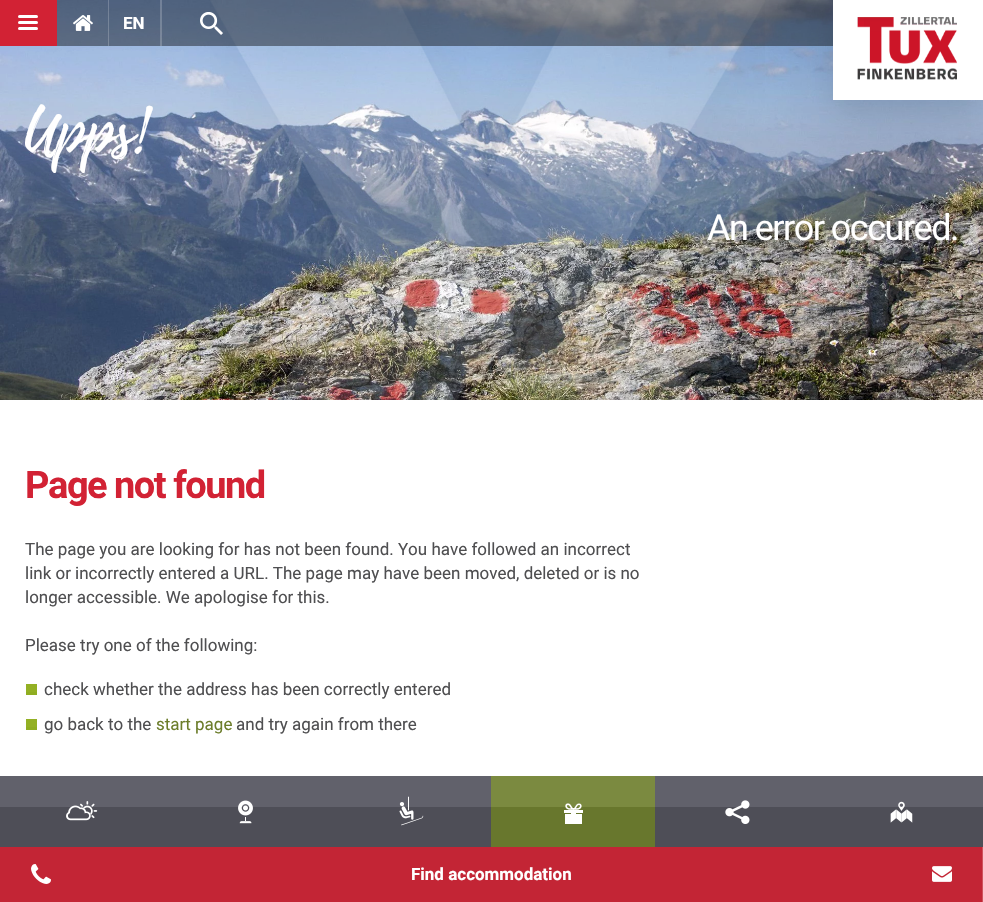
#include "include/core/SkBlurTypes.h"
#include "include/core/SkCanvas.h"
#include "include/core/SkData.h"
#include "include/core/SkFont.h"
#include "include/core/SkFontMgr.h"
#include "include/core/SkImage.h"
#include "include/core/SkMaskFilter.h"
#include "include/core/SkPaint.h"
#include "include/core/SkPathBuilder.h"
#include "include/core/SkTextBlob.h"
#include "include/effects/SkDashPathEffect.h"
#include "include/effects/SkGradientShader.h"
#include "include/utils/SkParsePath.h"

extern sk_sp<SkFontMgr> fontMgr;

void draw(SkCanvas* canvas) {
  SkPaint p;
  p.setAntiAlias(true);
  auto spacedText = [&](const char* s, float x, float y, const SkFont& font, const SkPaint& ink, float letter, float word) {
    std::vector<SkGlyphID> glyphs(font.countText(s, strlen(s), SkTextEncoding::kUTF8));
    std::vector<float> xs(glyphs.size());
    font.textToGlyphs(s, strlen(s), SkTextEncoding::kUTF8, glyphs);
    font.getXPos(glyphs, xs, x);
    float extra = 0;
    for (size_t i = 0; i < glyphs.size(); i++) {
      xs[i] += extra;
      extra += letter + word * (glyphs[i] == font.unicharToGlyph(' '));
    }
    canvas->drawTextBlob(SkTextBlob::MakeFromPosHGlyphs(glyphs, xs, y, font), 0, 0, ink);
  };
  canvas->clear(SK_ColorWHITE);
  p.setColor(SkColorSetRGB(97, 97, 107));
  canvas->drawRect(SkRect::MakeLTRB(655, 776, 983, 807), p);
  p.setColor(SkColorSetRGB(123, 138, 64));
  canvas->drawRect(SkRect::MakeLTRB(491, 776, 655, 807), p);
  p.setColor(SkColorSetRGB(97, 97, 107));
  canvas->drawRect(SkRect::MakeLTRB(328, 776, 491, 807), p);
  canvas->drawRect(SkRect::MakeLTRB(0, 776, 328, 807), p);
  canvas->drawImageRect(SkImages::DeferredFromEncodedData(SkData::MakeFromFileName("images/4.png")), SkRect::MakeLTRB(0, 0, 983, 400), SkSamplingOptions());
  canvas->drawImageRect(SkImages::DeferredFromEncodedData(SkData::MakeFromFileName("images/5.png")), SkRect::MakeLTRB(210, 0, 765, 400), SkSamplingOptions());
  p.setColor(SkColorSetARGB(107, 0, 0, 0));
  canvas->drawRect(SkRect::MakeLTRB(57, 0, 833, 46), p);
  p.setColor(SkColorSetRGB(210, 34, 52));
  canvas->drawRect(SkRect::MakeLTRB(0, 0, 57, 46), p);
  p.setColor(SK_ColorWHITE);
  canvas->drawRoundRect(SkRect::MakeLTRB(18, 21, 38, 24), 1.5f, 1.5f, p);
  canvas->drawRoundRect(SkRect::MakeLTRB(18, 15, 38, 18), 1.5f, 1.5f, p);
  canvas->drawRoundRect(SkRect::MakeLTRB(18, 27, 38, 30), 1.5f, 1.5f, p);
  p.setColor(SkColorSetARGB(51, 255, 255, 255));
  canvas->drawRect(SkRect::MakeLTRB(161, 0, 162, 46), p);
  canvas->drawImageRect(SkImages::DeferredFromEncodedData(SkData::MakeFromFileName("images/1.png")), SkRect::MakeLTRB(73, 15, 93, 31), SkSamplingOptions());
  canvas->drawRect(SkRect::MakeLTRB(108, 0, 109, 46), p);
  canvas->drawRect(SkRect::MakeLTRB(160, 0, 161, 46), p);
  canvas->drawImageRect(SkImages::DeferredFromEncodedData(SkData::MakeFromFileName("images/2.png")), SkRect::MakeLTRB(200, 12, 223, 35), SkSamplingOptions());
  p.setColor(SkColorSetARGB(26, 0, 0, 0));
  p.setMaskFilter(SkMaskFilter::MakeBlur(kNormal_SkBlurStyle, 14.5f));
  canvas->drawRect(SkRect::MakeLTRB(833, 13, 983, 113), p);
  p.setMaskFilter(nullptr);
  p.setColor(SK_ColorWHITE);
  canvas->drawRect(SkRect::MakeLTRB(833, 0, 983, 100), p);
  canvas->drawImageRect(SkImages::DeferredFromEncodedData(SkData::MakeFromFileName("images/3.png")), SkRect::MakeLTRB(857, 17, 957, 80), SkSamplingOptions());
  canvas->drawImageRect(SkImages::DeferredFromEncodedData(SkData::MakeFromFileName("images/6.png")), SkRect::MakeLTRB(26, 684, 37, 695), SkSamplingOptions());
  canvas->drawImageRect(SkImages::DeferredFromEncodedData(SkData::MakeFromFileName("images/6.png")), SkRect::MakeLTRB(26, 719, 37, 730), SkSamplingOptions());
  p.setColor(SkColorSetRGB(78, 78, 87));
  canvas->drawRect(SkRect::MakeLTRB(655, 807, 983, 847), p);
  p.setColor(SkColorSetRGB(104, 119, 45));
  canvas->drawRect(SkRect::MakeLTRB(491, 807, 655, 847), p);
  p.setColor(SkColorSetRGB(78, 78, 87));
  canvas->drawRect(SkRect::MakeLTRB(328, 807, 491, 847), p);
  canvas->drawRect(SkRect::MakeLTRB(0, 807, 328, 847), p);
  p.setColor(SkColorSetRGB(195, 37, 53));
  canvas->drawRect(SkRect::MakeLTRB(0, 847, 982, 902), p);
  canvas->drawImageRect(SkImages::DeferredFromEncodedData(SkData::MakeFromFileName("images/7.png")), SkRect::MakeLTRB(31, 864, 51, 884), SkSamplingOptions());
  canvas->drawImageRect(SkImages::DeferredFromEncodedData(SkData::MakeFromFileName("images/8.png")), SkRect::MakeLTRB(66, 801, 98, 821), SkSamplingOptions());
  canvas->drawImageRect(SkImages::DeferredFromEncodedData(SkData::MakeFromFileName("images/9.png")), SkRect::MakeLTRB(238, 800, 253, 824), SkSamplingOptions());
  canvas->drawImageRect(SkImages::DeferredFromEncodedData(SkData::MakeFromFileName("images/10.png")), SkRect::MakeLTRB(399, 796, 424, 826), SkSamplingOptions());
  canvas->drawImageRect(SkImages::DeferredFromEncodedData(SkData::MakeFromFileName("images/11.png")), SkRect::MakeLTRB(564, 803, 583, 824), SkSamplingOptions());
  canvas->drawImageRect(SkImages::DeferredFromEncodedData(SkData::MakeFromFileName("images/12.png")), SkRect::MakeLTRB(725, 800, 750, 824), SkSamplingOptions());
  canvas->drawImageRect(SkImages::DeferredFromEncodedData(SkData::MakeFromFileName("images/13.png")), SkRect::MakeLTRB(890, 801, 913, 823), SkSamplingOptions());
  p.setColor(SkColorSetRGB(207, 81, 93));
  canvas->drawRect(SkRect::MakeLTRB(982, 847, 983, 902), p);
  canvas->drawImageRect(SkImages::DeferredFromEncodedData(SkData::MakeFromFileName("images/14.png")), SkRect::MakeLTRB(932, 866, 952, 882), SkSamplingOptions());
  SkFont font1(fontMgr->matchFamilyStyle("Roboto", SkFontStyle::Bold()), 17);
  font1.setSubpixel(true);
  p.setColor(SK_ColorWHITE);
  canvas->drawString("EN", 123, 29, font1, p);
  SkFont font2(fontMgr->matchFamilyStyle("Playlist", SkFontStyle::Normal()), 60);
  font2.setSubpixel(true);
  spacedText("Upps!", 25, 149, font2, p, -1.5f, 0);
  SkFont font3(fontMgr->matchFamilyStyle("Roboto", SkFontStyle::Normal()), 36);
  font3.setSubpixel(true);
  spacedText("An error occured.", 707, 240, font3, p, -1.5f, 0);
  SkFont font4(fontMgr->matchFamilyStyle("Roboto", SkFontStyle::Bold()), 38);
  font4.setSubpixel(true);
  p.setColor(SkColorSetRGB(210, 34, 52));
  spacedText("Page not found", 25, 498, font4, p, -1.5f, 0);
  SkFont font5(fontMgr->matchFamilyStyle("Roboto", SkFontStyle::Normal()), 17);
  font5.setSubpixel(true);
  p.setColor(SkColorSetRGB(79, 79, 81));
  canvas->drawString("The page you are looking for has not been found. You have followed an incorrect", 25, 555, font5, p);
  canvas->drawString("link or incorrectly entered a URL. The page may have been moved, deleted or is no", 25, 579, font5, p);
  canvas->drawString("longer accessible. We apologise for this.", 25, 603, font5, p);
  canvas->drawString("Please try one of the following:", 25, 651, font5, p);
  canvas->drawString("check whether the address has been correctly entered", 44, 695, font5, p);
  canvas->drawString("go back to the", 44, 730, font5, p);
  p.setColor(SkColorSetRGB(108, 125, 43));
  canvas->drawString("start page", 156, 730, font5, p);
  p.setColor(SkColorSetRGB(79, 79, 81));
  canvas->drawString("and try again from there", 236, 730, font5, p);
  p.setColor(SK_ColorWHITE);
  canvas->drawString("Find accommodation", 411, 880, font1, p);
}
